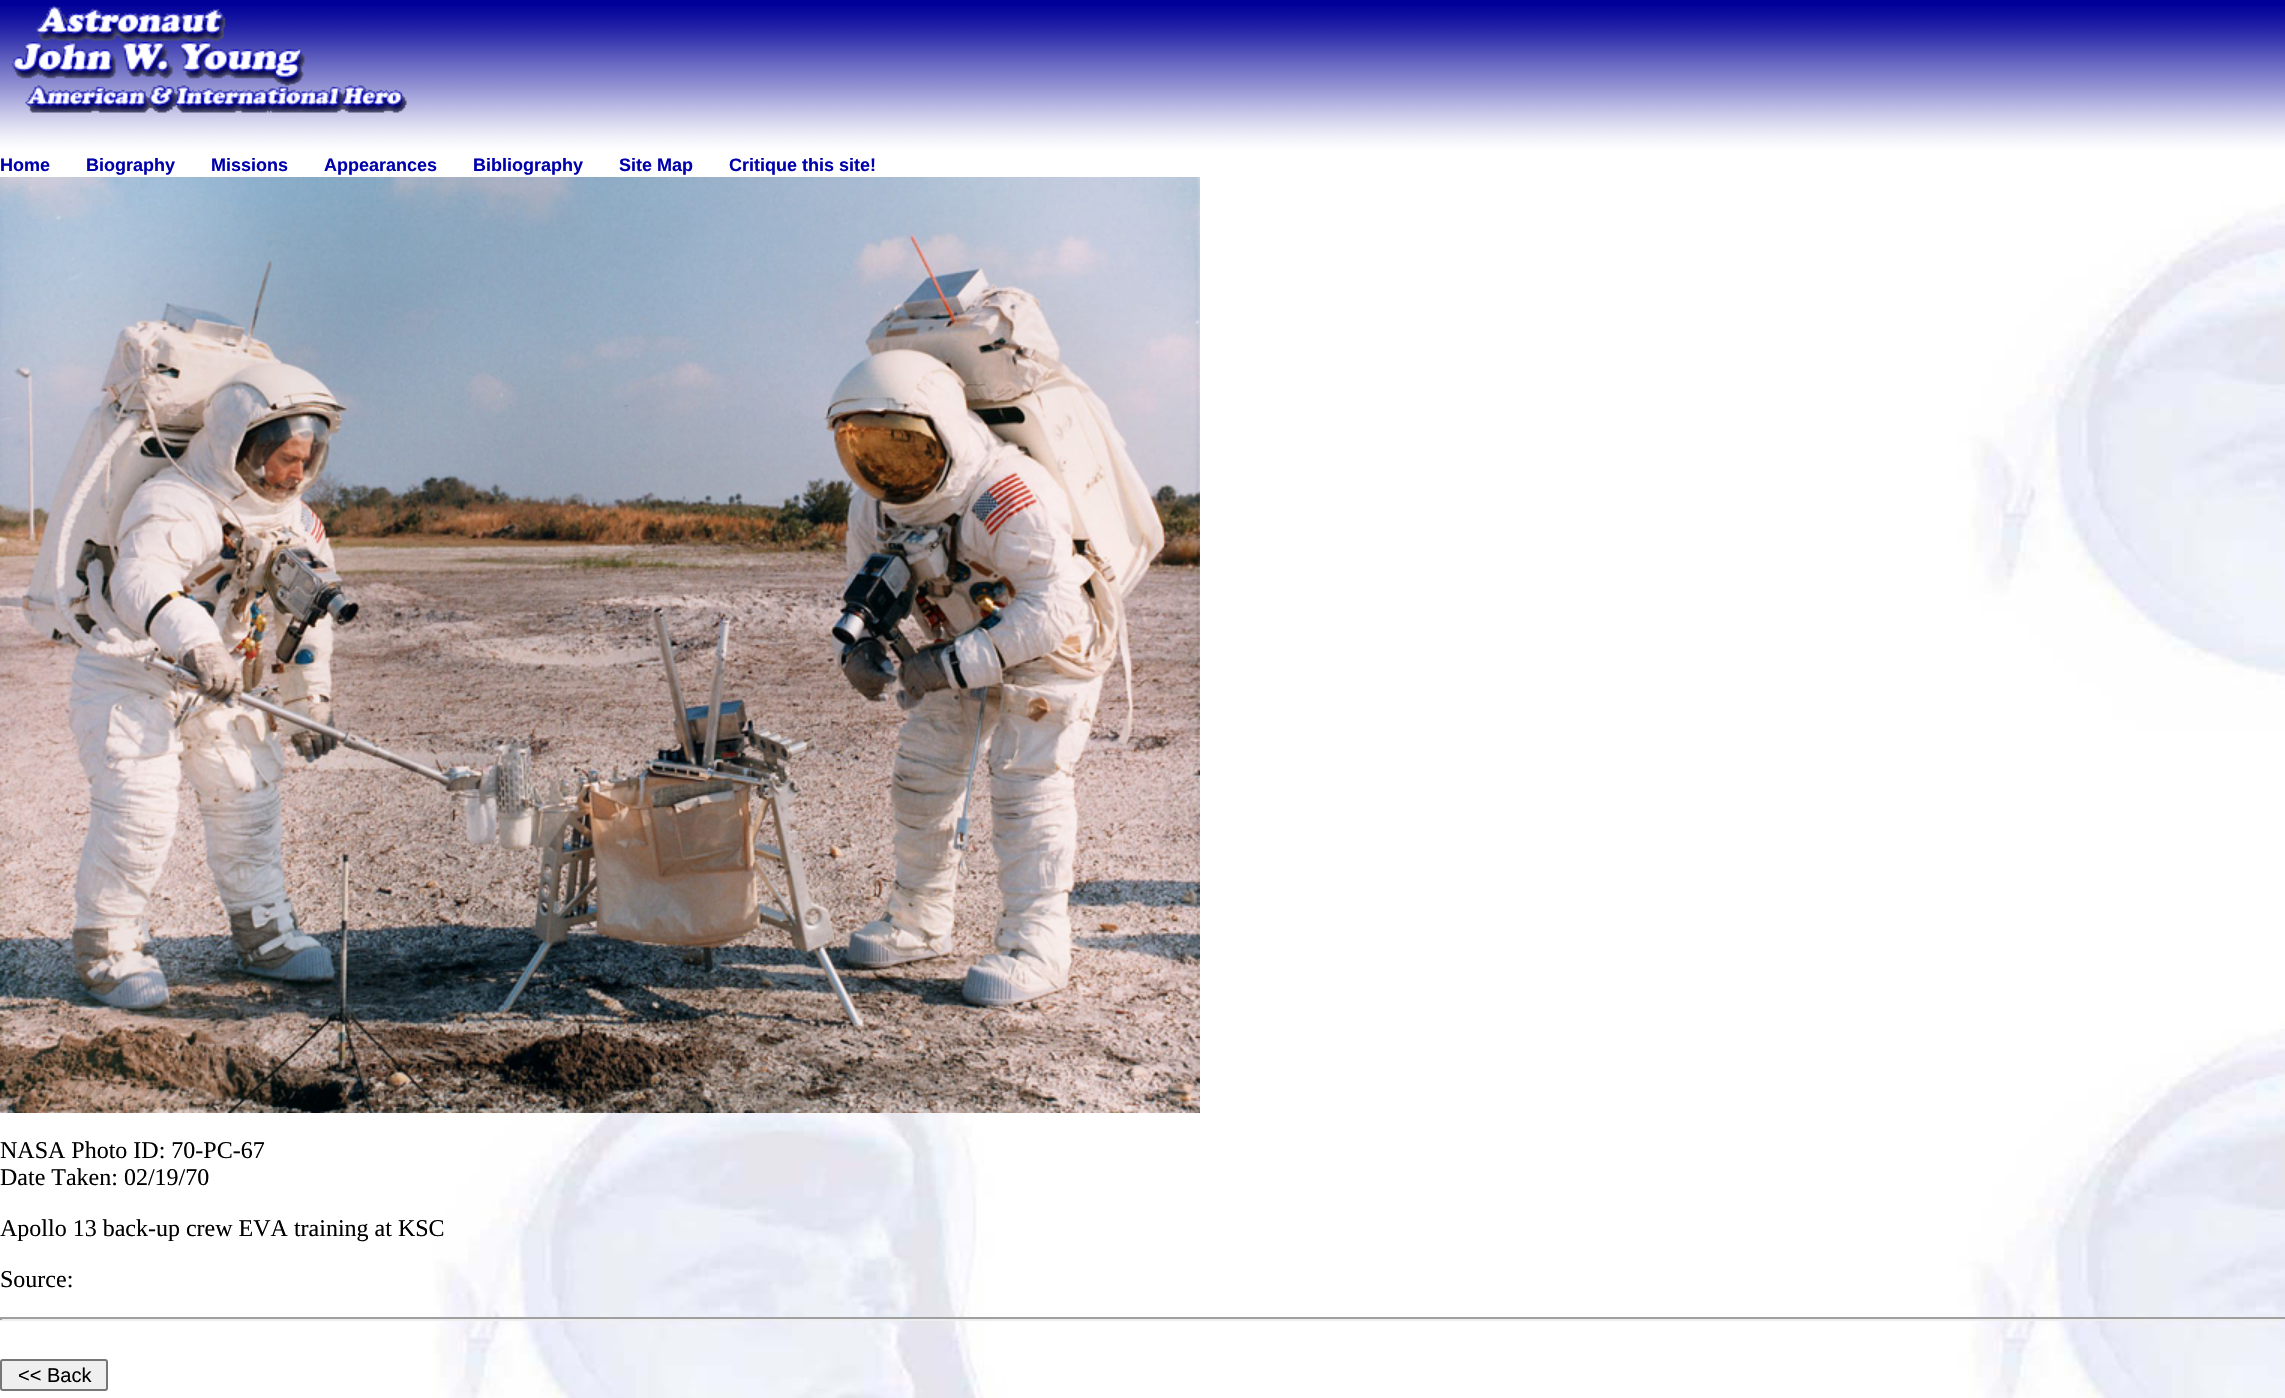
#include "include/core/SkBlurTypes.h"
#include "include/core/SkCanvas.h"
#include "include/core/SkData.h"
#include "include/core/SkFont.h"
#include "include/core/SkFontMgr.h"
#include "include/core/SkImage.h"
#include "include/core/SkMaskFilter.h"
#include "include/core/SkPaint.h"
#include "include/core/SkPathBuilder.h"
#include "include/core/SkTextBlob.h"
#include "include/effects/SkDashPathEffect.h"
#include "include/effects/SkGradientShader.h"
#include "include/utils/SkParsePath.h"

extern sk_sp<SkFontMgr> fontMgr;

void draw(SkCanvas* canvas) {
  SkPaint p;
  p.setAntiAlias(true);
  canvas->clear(SK_ColorWHITE);
  canvas->drawImageRect(SkImages::DeferredFromEncodedData(SkData::MakeFromFileName("images/1.png")), SkRect::MakeLTRB(433, 192, 2285, 1398), SkSamplingOptions());
  p.setColor(SkColorSetRGB(0, 0, 153));
  canvas->drawRect(SkRect::MakeLTRB(0, 0, 2285, 6), p);
  canvas->drawImageRect(SkImages::DeferredFromEncodedData(SkData::MakeFromFileName("images/2.png")), SkRect::MakeLTRB(0, 6, 2285, 150), SkSamplingOptions());
  canvas->drawImageRect(SkImages::DeferredFromEncodedData(SkData::MakeFromFileName("images/3.png")), SkRect::MakeLTRB(11, 5, 407, 113), SkSamplingOptions());
  canvas->drawImageRect(SkImages::DeferredFromEncodedData(SkData::MakeFromFileName("images/4.png")), SkRect::MakeLTRB(0, 177, 1200, 1113), SkSamplingOptions());
  p.setColor(SkColorSetRGB(159, 159, 159));
  canvas->drawRect(SkRect::MakeLTRB(0, 1317, 2285, 1319), p);
  p.setColor(SkColorSetRGB(238, 238, 238));
  canvas->drawRect(SkRect::MakeLTRB(0, 1319, 2285, 1321), p);
  p.setColor(SkColorSetRGB(159, 159, 159));
  canvas->drawRect(SkRect::MakeLTRB(0, 1317, 2, 1320), p);
  p.setColor(SkColorSetRGB(239, 239, 239));
  canvas->drawRoundRect(SkRect::MakeLTRB(1, 1360, 107, 1390), 2, 2, p);
  p.setStyle(SkPaint::kStroke_Style);
  p.setStrokeWidth(2);
  p.setColor(SkColorSetRGB(118, 118, 118));
  canvas->drawRoundRect(SkRect::MakeLTRB(1, 1360, 107, 1390), 2, 2, p);
  SkFont font1(fontMgr->matchFamilyStyle("Liberation Sans", SkFontStyle::Bold()), 18);
  font1.setSubpixel(true);
  p.setStyle(SkPaint::kFill_Style);
  p.setColor(SkColorSetRGB(0, 0, 170));
  canvas->drawString("Home", 0, 171, font1, p);
  canvas->drawString("Biography", 86, 171, font1, p);
  canvas->drawString("Missions", 211, 171, font1, p);
  canvas->drawString("Appearances", 324, 171, font1, p);
  canvas->drawString("Bibliography", 473, 171, font1, p);
  canvas->drawString("Site Map", 619, 171, font1, p);
  canvas->drawString("Critique this site!", 729, 171, font1, p);
  SkFont font2(fontMgr->matchFamilyStyle("Liberation Serif", SkFontStyle::Normal()), 24);
  font2.setSubpixel(true);
  p.setColor(SK_ColorBLACK);
  canvas->drawString("NASA Photo ID: 70-PC-67", 0, 1158, font2, p);
  canvas->drawString("Date Taken: 02/19/70", 0, 1185, font2, p);
  canvas->drawString("Apollo 13 back-up crew EVA training at KSC", 0, 1236, font2, p);
  canvas->drawString("Source:", 0, 1287, font2, p);
  SkFont font3(fontMgr->matchFamilyStyle("Liberation Sans", SkFontStyle::Normal()), 20);
  font3.setSubpixel(true);
  canvas->drawString("<< Back", 18, 1382, font3, p);
}
